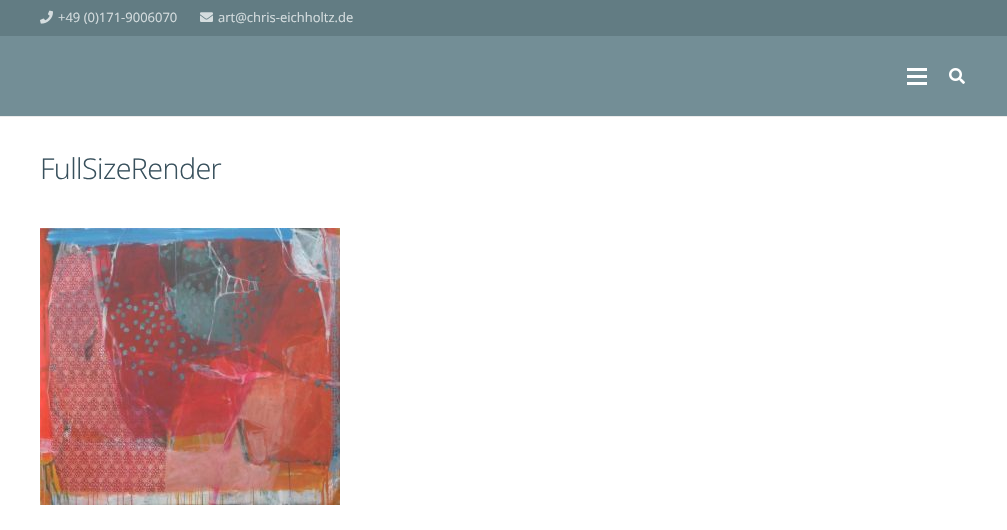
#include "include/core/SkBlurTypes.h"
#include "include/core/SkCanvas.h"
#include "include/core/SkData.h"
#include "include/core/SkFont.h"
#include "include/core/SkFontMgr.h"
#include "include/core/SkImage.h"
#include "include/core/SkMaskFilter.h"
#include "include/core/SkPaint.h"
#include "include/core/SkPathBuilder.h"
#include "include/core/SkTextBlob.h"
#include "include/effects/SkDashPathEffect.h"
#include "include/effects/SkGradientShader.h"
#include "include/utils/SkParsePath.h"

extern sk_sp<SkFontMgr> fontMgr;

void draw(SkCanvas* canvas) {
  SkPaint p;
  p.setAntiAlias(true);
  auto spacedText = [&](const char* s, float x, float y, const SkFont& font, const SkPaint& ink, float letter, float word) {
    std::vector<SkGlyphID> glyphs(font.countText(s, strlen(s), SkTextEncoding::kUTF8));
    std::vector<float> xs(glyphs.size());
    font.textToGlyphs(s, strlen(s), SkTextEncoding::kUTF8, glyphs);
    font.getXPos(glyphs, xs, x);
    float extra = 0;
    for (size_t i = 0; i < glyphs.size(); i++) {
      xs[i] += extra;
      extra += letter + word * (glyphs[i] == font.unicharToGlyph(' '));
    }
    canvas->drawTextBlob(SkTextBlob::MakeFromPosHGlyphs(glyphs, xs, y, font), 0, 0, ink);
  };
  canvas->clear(SK_ColorWHITE);
  p.setColor(SkColorSetRGB(98, 124, 131));
  canvas->drawRect(SkRect::MakeLTRB(0, 0, 1007, 36), p);
  canvas->drawImageRect(SkImages::DeferredFromEncodedData(SkData::MakeFromFileName("images/1.png")), SkRect::MakeLTRB(40, 10, 53, 24), SkSamplingOptions());
  canvas->drawImageRect(SkImages::DeferredFromEncodedData(SkData::MakeFromFileName("images/2.png")), SkRect::MakeLTRB(200, 12, 213, 22), SkSamplingOptions());
  p.setColor(SkColorSetRGB(235, 235, 235));
  canvas->drawRect(SkRect::MakeLTRB(0, 116, 1007, 117), p);
  p.setColor(SkColorSetRGB(115, 142, 150));
  canvas->drawRect(SkRect::MakeLTRB(0, 36, 1007, 116), p);
  p.setColor(SK_ColorWHITE);
  canvas->drawRect(SkRect::MakeLTRB(907, 75, 927, 78), p);
  canvas->drawRect(SkRect::MakeLTRB(907, 68, 927, 71), p);
  canvas->drawRect(SkRect::MakeLTRB(907, 82, 927, 85), p);
  canvas->drawImageRect(SkImages::DeferredFromEncodedData(SkData::MakeFromFileName("images/3.png")), SkRect::MakeLTRB(949, 68, 965, 84), SkSamplingOptions());
  canvas->drawImageRect(SkImages::DeferredFromEncodedData(SkData::MakeFromFileName("images/4.png")), SkRect::MakeLTRB(40, 228, 340, 505), SkSamplingOptions());
  SkFont font1(fontMgr->matchFamilyStyle("Open Sans", SkFontStyle::Normal()), 13);
  font1.setSubpixel(true);
  p.setColor(SkColorSetRGB(213, 221, 223));
  canvas->drawString("+49 (0)171-9006070", 58, 22, font1, p);
  canvas->drawString("art@chris-eichholtz.de", 218, 22, font1, p);
  SkFont font2(fontMgr->matchFamilyStyle("Open Sans", SkFontStyle(300, SkFontStyle::kNormal_Width, SkFontStyle::kUpright_Slant)), 28.75f);
  font2.setSubpixel(true);
  p.setColor(SkColorSetRGB(56, 80, 92));
  spacedText("FullSizeRender", 40, 179, font2, p, -0.6f, 0);
}
